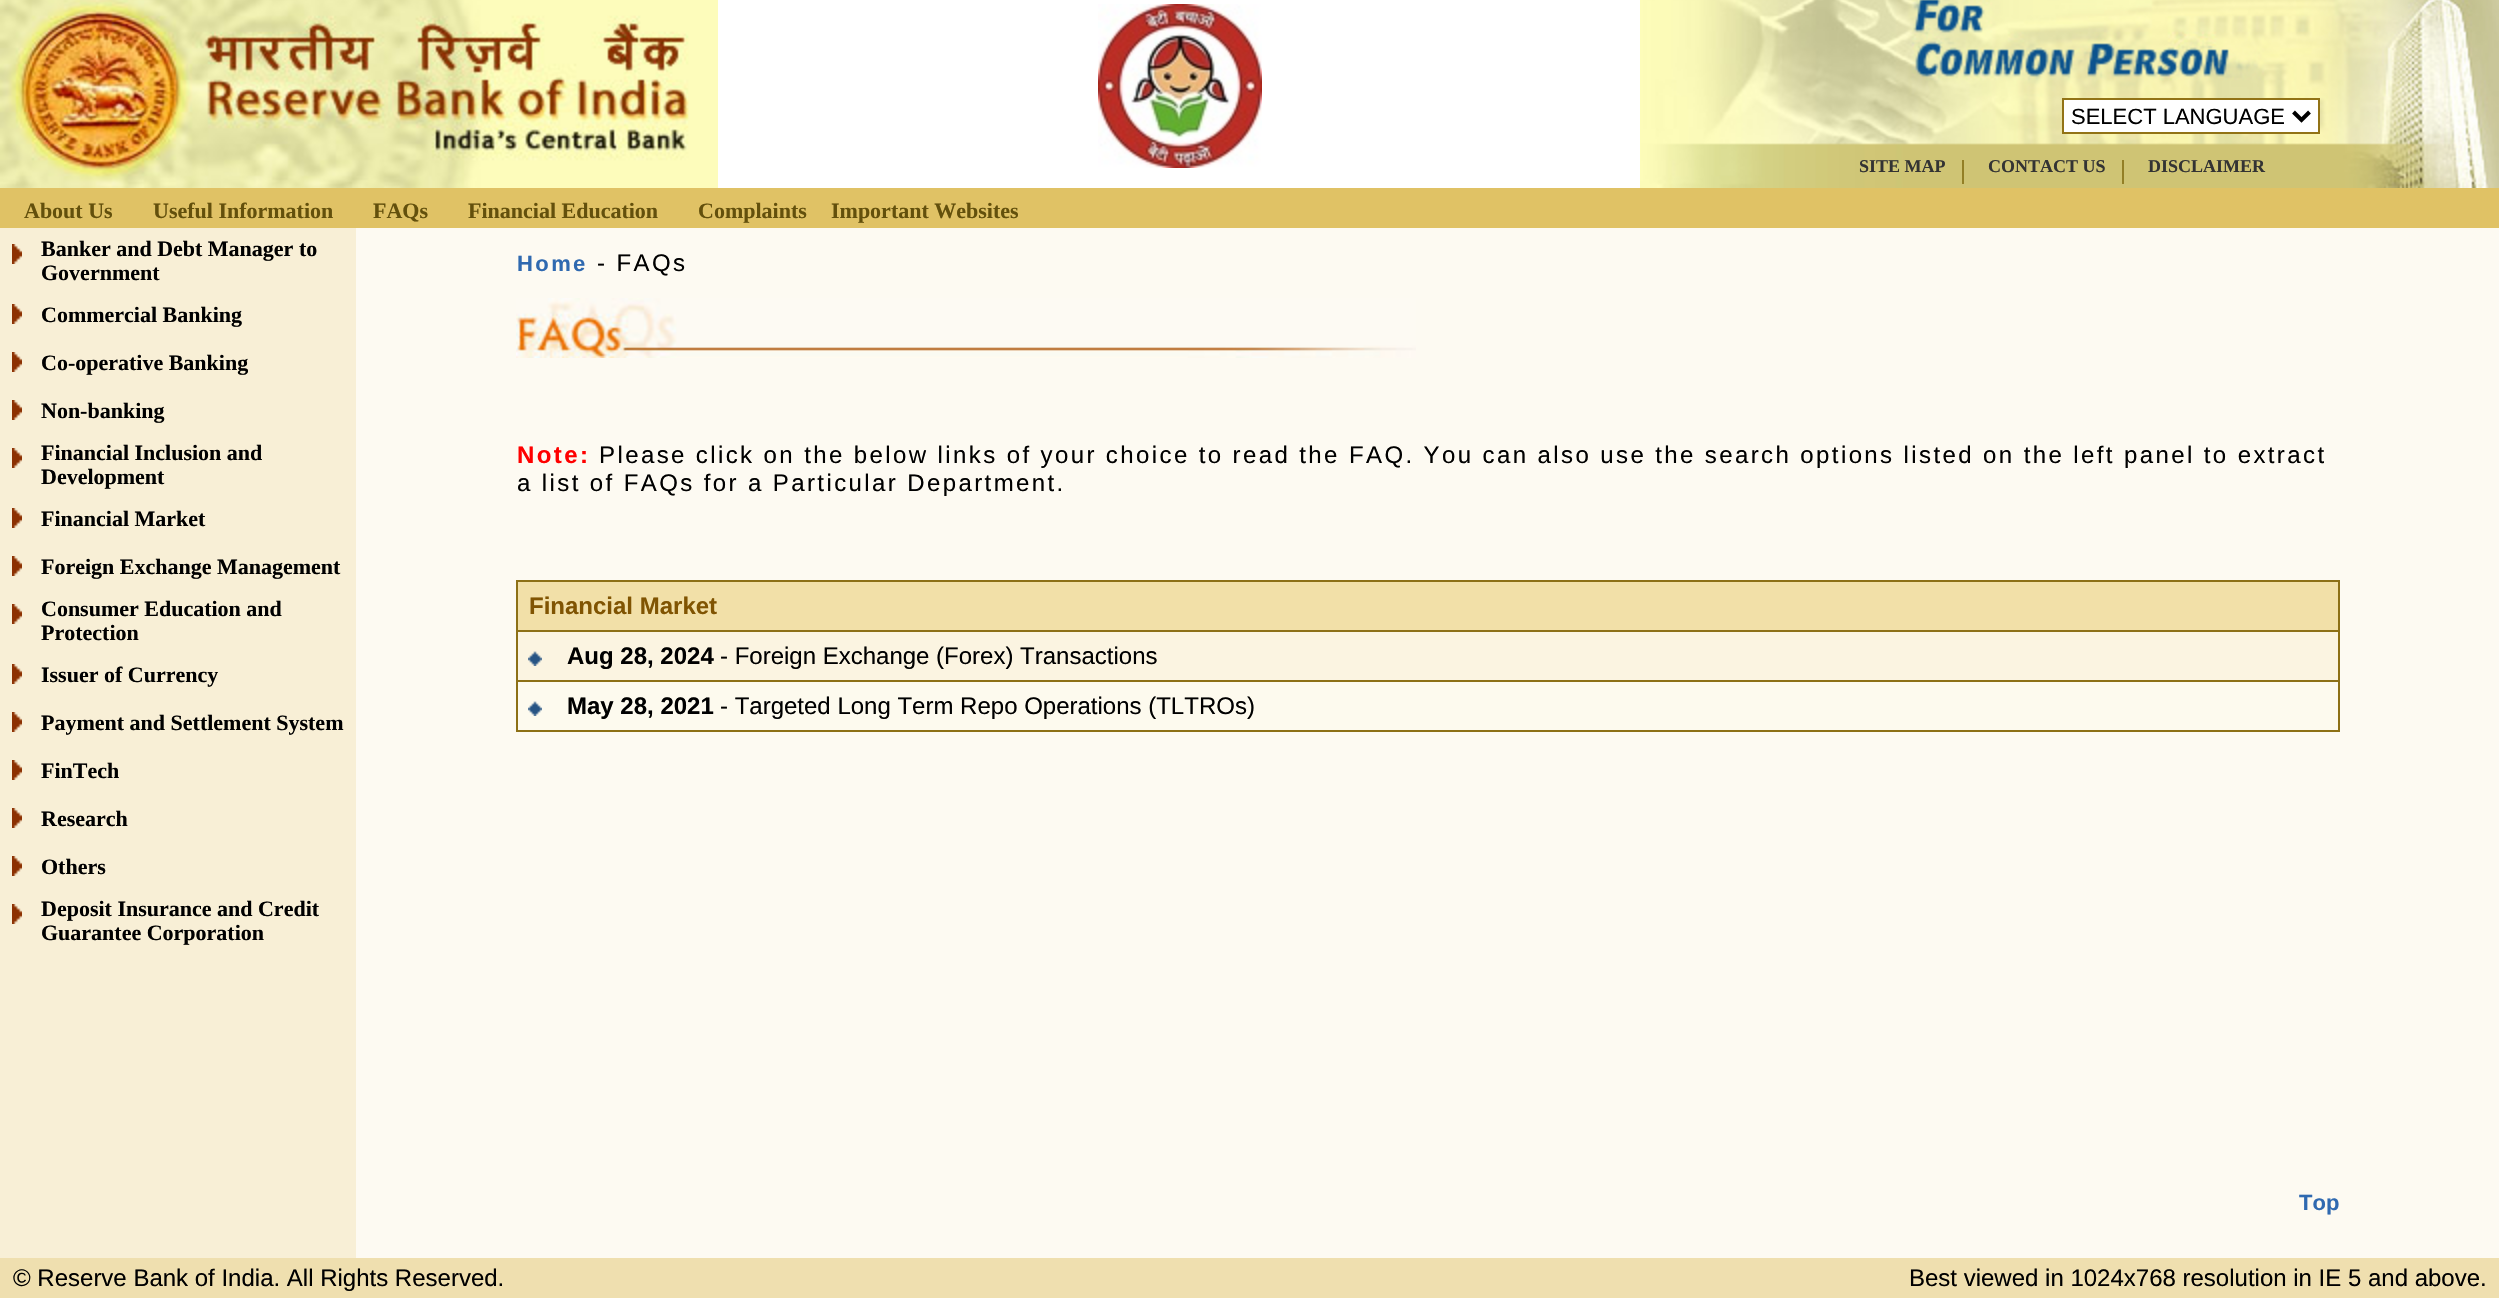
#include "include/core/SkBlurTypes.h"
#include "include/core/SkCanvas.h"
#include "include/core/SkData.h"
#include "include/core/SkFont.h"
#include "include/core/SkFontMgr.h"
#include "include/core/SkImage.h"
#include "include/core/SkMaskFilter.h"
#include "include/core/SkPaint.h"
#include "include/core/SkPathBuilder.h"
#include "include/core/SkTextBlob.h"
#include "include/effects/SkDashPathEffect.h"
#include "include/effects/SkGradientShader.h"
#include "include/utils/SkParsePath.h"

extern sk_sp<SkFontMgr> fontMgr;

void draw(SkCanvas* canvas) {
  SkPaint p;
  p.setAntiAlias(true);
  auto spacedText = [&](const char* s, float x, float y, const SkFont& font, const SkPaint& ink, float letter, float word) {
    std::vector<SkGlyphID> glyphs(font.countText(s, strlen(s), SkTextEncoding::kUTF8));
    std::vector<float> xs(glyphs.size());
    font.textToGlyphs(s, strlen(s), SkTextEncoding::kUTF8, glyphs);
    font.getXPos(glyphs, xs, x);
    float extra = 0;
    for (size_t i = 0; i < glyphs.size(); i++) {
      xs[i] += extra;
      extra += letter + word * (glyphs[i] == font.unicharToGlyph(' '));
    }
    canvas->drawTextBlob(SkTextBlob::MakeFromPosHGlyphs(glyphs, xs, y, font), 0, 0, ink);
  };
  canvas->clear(SK_ColorWHITE);
  canvas->drawImageRect(SkImages::DeferredFromEncodedData(SkData::MakeFromFileName("images/1.png")), SkRect::MakeLTRB(0, 0, 696, 188), SkSamplingOptions());
  p.setColor(SkColorSetRGB(253, 252, 187));
  canvas->drawRect(SkRect::MakeLTRB(696, 0, 718, 188), p);
  canvas->drawImageRect(SkImages::DeferredFromEncodedData(SkData::MakeFromFileName("images/2.png")), SkRect::MakeLTRB(1098, 4, 1262, 168), SkSamplingOptions());
  canvas->drawImageRect(SkImages::DeferredFromEncodedData(SkData::MakeFromFileName("images/3.png")), SkRect::MakeLTRB(1640, 0, 2499, 188), SkSamplingOptions());
  p.setColor(SK_ColorWHITE);
  canvas->drawRect(SkRect::MakeLTRB(2063, 99, 2319, 133), p);
  p.setStyle(SkPaint::kStroke_Style);
  p.setStrokeWidth(2);
  p.setColor(SkColorSetRGB(146, 115, 22));
  canvas->drawRect(SkRect::MakeLTRB(2063, 99, 2319, 133), p);
  p.setStrokeWidth(4);
  p.setColor(SK_ColorBLACK);
  canvas->drawPath(SkPathBuilder().moveTo(2293.5f, 112).lineTo(2301.5f, 120).lineTo(2309.5f, 112).detach(), p);
  p.setStyle(SkPaint::kFill_Style);
  p.setColor(SkColorSetRGB(147, 127, 38));
  canvas->drawRect(SkRect::MakeLTRB(1962, 160, 1964, 184), p);
  canvas->drawRect(SkRect::MakeLTRB(2122, 160, 2124, 184), p);
  p.setColor(SkColorSetRGB(224, 194, 101));
  canvas->drawRect(SkRect::MakeLTRB(0, 188, 2499, 228), p);
  p.setColor(SkColorSetRGB(253, 250, 242));
  canvas->drawRect(SkRect::MakeLTRB(356, 228, 2499, 1258), p);
  p.setColor(SkColorSetRGB(248, 239, 214));
  canvas->drawRect(SkRect::MakeLTRB(0, 228, 356, 1258), p);
  canvas->drawImageRect(SkImages::DeferredFromEncodedData(SkData::MakeFromFileName("images/4.png")), SkRect::MakeLTRB(12, 244, 22, 264), SkSamplingOptions());
  canvas->drawImageRect(SkImages::DeferredFromEncodedData(SkData::MakeFromFileName("images/4.png")), SkRect::MakeLTRB(12, 304, 22, 324), SkSamplingOptions());
  canvas->drawImageRect(SkImages::DeferredFromEncodedData(SkData::MakeFromFileName("images/4.png")), SkRect::MakeLTRB(12, 352, 22, 372), SkSamplingOptions());
  canvas->drawImageRect(SkImages::DeferredFromEncodedData(SkData::MakeFromFileName("images/4.png")), SkRect::MakeLTRB(12, 400, 22, 420), SkSamplingOptions());
  canvas->drawImageRect(SkImages::DeferredFromEncodedData(SkData::MakeFromFileName("images/4.png")), SkRect::MakeLTRB(12, 448, 22, 468), SkSamplingOptions());
  canvas->drawImageRect(SkImages::DeferredFromEncodedData(SkData::MakeFromFileName("images/4.png")), SkRect::MakeLTRB(12, 508, 22, 528), SkSamplingOptions());
  canvas->drawImageRect(SkImages::DeferredFromEncodedData(SkData::MakeFromFileName("images/4.png")), SkRect::MakeLTRB(12, 556, 22, 576), SkSamplingOptions());
  canvas->drawImageRect(SkImages::DeferredFromEncodedData(SkData::MakeFromFileName("images/4.png")), SkRect::MakeLTRB(12, 604, 22, 624), SkSamplingOptions());
  canvas->drawImageRect(SkImages::DeferredFromEncodedData(SkData::MakeFromFileName("images/4.png")), SkRect::MakeLTRB(12, 664, 22, 684), SkSamplingOptions());
  canvas->drawImageRect(SkImages::DeferredFromEncodedData(SkData::MakeFromFileName("images/4.png")), SkRect::MakeLTRB(12, 712, 22, 732), SkSamplingOptions());
  canvas->drawImageRect(SkImages::DeferredFromEncodedData(SkData::MakeFromFileName("images/4.png")), SkRect::MakeLTRB(12, 760, 22, 780), SkSamplingOptions());
  canvas->drawImageRect(SkImages::DeferredFromEncodedData(SkData::MakeFromFileName("images/4.png")), SkRect::MakeLTRB(12, 808, 22, 828), SkSamplingOptions());
  canvas->drawImageRect(SkImages::DeferredFromEncodedData(SkData::MakeFromFileName("images/4.png")), SkRect::MakeLTRB(12, 856, 22, 876), SkSamplingOptions());
  canvas->drawImageRect(SkImages::DeferredFromEncodedData(SkData::MakeFromFileName("images/4.png")), SkRect::MakeLTRB(12, 904, 22, 924), SkSamplingOptions());
  canvas->drawImageRect(SkImages::DeferredFromEncodedData(SkData::MakeFromFileName("images/5.png")), SkRect::MakeLTRB(516, 298, 1416, 358), SkSamplingOptions());
  p.setColor(SkColorSetRGB(141, 112, 22));
  canvas->drawRect(SkRect::MakeLTRB(516, 580, 2340, 732), p);
  p.setColor(SkColorSetRGB(242, 224, 168));
  canvas->drawRect(SkRect::MakeLTRB(518, 582, 2338, 630), p);
  p.setColor(SkColorSetRGB(251, 244, 225));
  canvas->drawRect(SkRect::MakeLTRB(518, 632, 2338, 680), p);
  canvas->drawImageRect(SkImages::DeferredFromEncodedData(SkData::MakeFromFileName("images/6.png")), SkRect::MakeLTRB(528, 651, 542, 666), SkSamplingOptions());
  p.setColor(SkColorSetRGB(253, 250, 238));
  canvas->drawRect(SkRect::MakeLTRB(518, 682, 2338, 730), p);
  canvas->drawImageRect(SkImages::DeferredFromEncodedData(SkData::MakeFromFileName("images/7.png")), SkRect::MakeLTRB(528, 701, 542, 716), SkSamplingOptions());
  p.setColor(SkColorSetRGB(239, 223, 175));
  canvas->drawRect(SkRect::MakeLTRB(0, 1258, 2499, 1298), p);
  SkFont font1(fontMgr->matchFamilyStyle("Liberation Sans", SkFontStyle::Normal()), 22);
  font1.setSubpixel(true);
  p.setColor(SK_ColorBLACK);
  canvas->drawString("SELECT LANGUAGE", 2071, 124, font1, p);
  SkFont font2(fontMgr->matchFamilyStyle("Liberation Serif", SkFontStyle::Bold()), 18);
  font2.setSubpixel(true);
  p.setColor(SkColorSetRGB(51, 51, 51));
  canvas->drawString("SITE MAP", 1859, 172, font2, p);
  canvas->drawString("CONTACT US", 1988, 172, font2, p);
  canvas->drawString("DISCLAIMER", 2148, 172, font2, p);
  SkFont font3(fontMgr->matchFamilyStyle("Liberation Serif", SkFontStyle::Bold()), 22);
  font3.setSubpixel(true);
  p.setColor(SkColorSetRGB(99, 80, 12));
  canvas->drawString("About Us", 24, 218, font3, p);
  canvas->drawString("Useful Information", 153, 218, font3, p);
  canvas->drawString("FAQs", 373, 218, font3, p);
  canvas->drawString("Financial Education", 468, 218, font3, p);
  canvas->drawString("Complaints", 698, 218, font3, p);
  canvas->drawString("Important Websites", 831, 218, font3, p);
  p.setColor(SK_ColorBLACK);
  canvas->drawString("Banker and Debt Manager to", 41, 256, font3, p);
  canvas->drawString("Government", 41, 280, font3, p);
  canvas->drawString("Commercial Banking", 41, 322, font3, p);
  canvas->drawString("Co-operative Banking", 41, 370, font3, p);
  canvas->drawString("Non-banking", 41, 418, font3, p);
  canvas->drawString("Financial Inclusion and", 41, 460, font3, p);
  canvas->drawString("Development", 41, 484, font3, p);
  canvas->drawString("Financial Market", 41, 526, font3, p);
  canvas->drawString("Foreign Exchange Management", 41, 574, font3, p);
  canvas->drawString("Consumer Education and", 41, 616, font3, p);
  canvas->drawString("Protection", 41, 640, font3, p);
  canvas->drawString("Issuer of Currency", 41, 682, font3, p);
  canvas->drawString("Payment and Settlement System", 41, 730, font3, p);
  canvas->drawString("FinTech", 41, 778, font3, p);
  canvas->drawString("Research", 41, 826, font3, p);
  canvas->drawString("Others", 41, 874, font3, p);
  canvas->drawString("Deposit Insurance and Credit", 41, 916, font3, p);
  canvas->drawString("Guarantee Corporation", 41, 940, font3, p);
  SkFont font4(fontMgr->matchFamilyStyle("Liberation Sans", SkFontStyle::Bold()), 22);
  font4.setSubpixel(true);
  p.setColor(SkColorSetRGB(47, 105, 176));
  spacedText("Home", 517, 271, font4, p, 2.4f, 0);
  SkFont font5(fontMgr->matchFamilyStyle("Liberation Sans", SkFontStyle::Normal()), 24);
  font5.setSubpixel(true);
  p.setColor(SK_ColorBLACK);
  spacedText("- FAQs", 597, 271, font5, p, 2.4f, 0);
  SkFont font6(fontMgr->matchFamilyStyle("Liberation Sans", SkFontStyle::Bold()), 24);
  font6.setSubpixel(true);
  p.setColor(SkColorSetRGB(255, 0, 0));
  spacedText("Note:", 517, 463, font6, p, 2.4f, 0);
  p.setColor(SK_ColorBLACK);
  spacedText("Please click on the below links of your choice to read the FAQ. You can also use the search options listed on the left panel to extract", 599, 463, font5, p, 2.4f, 0);
  spacedText("a list of FAQs for a Particular Department.", 517, 491, font5, p, 2.4f, 0);
  p.setColor(SkColorSetRGB(128, 84, 2));
  canvas->drawString("Financial Market", 529, 614, font6, p);
  p.setColor(SK_ColorBLACK);
  canvas->drawString("Aug 28, 2024", 567, 664, font6, p);
  canvas->drawString("- Foreign Exchange (Forex) Transactions", 720, 664, font5, p);
  canvas->drawString("May 28, 2021", 567, 714, font6, p);
  canvas->drawString("- Targeted Long Term Repo Operations (TLTROs)", 720, 714, font5, p);
  p.setColor(SkColorSetRGB(47, 105, 176));
  canvas->drawString("Top", 2299, 1210, font4, p);
  p.setColor(SK_ColorBLACK);
  canvas->drawString("© Reserve Bank of India. All Rights Reserved.", 13, 1286, font5, p);
  canvas->drawString("Best viewed in 1024x768 resolution in IE 5 and above.", 1909, 1286, font5, p);
}
